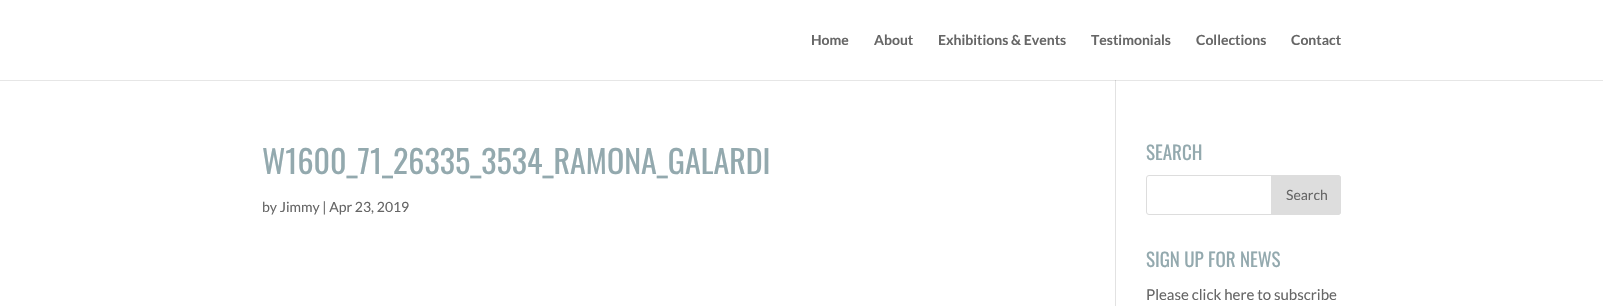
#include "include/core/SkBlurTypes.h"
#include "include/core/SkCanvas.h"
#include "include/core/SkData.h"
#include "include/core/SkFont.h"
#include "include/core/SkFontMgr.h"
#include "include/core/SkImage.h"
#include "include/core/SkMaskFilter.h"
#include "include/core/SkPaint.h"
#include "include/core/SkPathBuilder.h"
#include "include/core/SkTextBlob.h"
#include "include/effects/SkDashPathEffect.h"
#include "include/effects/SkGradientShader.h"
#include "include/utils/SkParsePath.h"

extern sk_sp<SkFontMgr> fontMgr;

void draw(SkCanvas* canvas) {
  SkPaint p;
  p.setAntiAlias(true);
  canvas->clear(SK_ColorWHITE);
  p.setColor(SkColorSetRGB(230, 230, 230));
  canvas->drawRect(SkRect::MakeLTRB(0, 80, 1603, 81), p);
  p.setColor(SkColorSetRGB(226, 226, 226));
  canvas->drawRect(SkRect::MakeLTRB(1115, 80, 1116, 306), p);
  p.setColor(SkColorSetRGB(203, 203, 203));
  canvas->drawRect(SkRect::MakeLTRB(1115, 80, 1116, 81), p);
  p.setStyle(SkPaint::kStroke_Style);
  p.setStrokeWidth(1);
  p.setColor(SkColorSetRGB(221, 221, 221));
  canvas->drawRoundRect(SkRect::MakeLTRB(1146.5f, 175.5f, 1340.5f, 214.5f), 2.5f, 2.5f, p);
  p.setStyle(SkPaint::kFill_Style);
  canvas->drawPath(SkPathBuilder().moveTo(1271.5f, 175.5f).lineTo(1338, 175.5f).cubicTo(1339.5f, 175.5f, 1340.5f, 176.5f, 1340.5f, 178).lineTo(1340.5f, 212).cubicTo(1340.5f, 213.5f, 1339.5f, 214.5f, 1338, 214.5f).lineTo(1271.5f, 214.5f).close().detach(), p);
  p.setStyle(SkPaint::kStroke_Style);
  canvas->drawPath(SkPathBuilder().moveTo(1271.5f, 175.5f).lineTo(1338, 175.5f).cubicTo(1339.5f, 175.5f, 1340.5f, 176.5f, 1340.5f, 178).lineTo(1340.5f, 212).cubicTo(1340.5f, 213.5f, 1339.5f, 214.5f, 1338, 214.5f).lineTo(1271.5f, 214.5f).close().detach(), p);
  SkFont font1(fontMgr->matchFamilyStyle("Lato", SkFontStyle::Bold()), 14);
  font1.setSubpixel(true);
  p.setStyle(SkPaint::kFill_Style);
  p.setColor(SkColorSetRGB(102, 102, 102));
  canvas->drawString("Home", 811, 45, font1, p);
  canvas->drawString("About", 874, 45, font1, p);
  canvas->drawString("Exhibitions & Events", 938, 45, font1, p);
  canvas->drawString("Testimonials", 1091, 45, font1, p);
  canvas->drawString("Collections", 1196, 45, font1, p);
  canvas->drawString("Contact", 1291, 45, font1, p);
  SkFont font2(fontMgr->matchFamilyStyle("Oswald", SkFontStyle::Normal()), 32);
  font2.setSubpixel(true);
  p.setColor(SkColorSetRGB(147, 169, 174));
  canvas->drawString("W1600_71_26335_3534_RAMONA_GALARDI", 262, 174, font2, p);
  SkFont font3(fontMgr->matchFamilyStyle("Lato", SkFontStyle::Normal()), 14);
  font3.setSubpixel(true);
  p.setColor(SkColorSetRGB(102, 102, 102));
  canvas->drawString("by Jimmy | Apr 23, 2019", 262, 212, font3, p);
  SkFont font4(fontMgr->matchFamilyStyle("Oswald", SkFontStyle::Normal()), 19);
  font4.setSubpixel(true);
  p.setColor(SkColorSetRGB(147, 169, 174));
  canvas->drawString("SEARCH", 1146, 160, font4, p);
  p.setColor(SkColorSetRGB(102, 102, 102));
  canvas->drawString("Search", 1286, 200, font3, p);
  p.setColor(SkColorSetRGB(147, 169, 174));
  canvas->drawString("SIGN UP FOR NEWS", 1146, 267, font4, p);
  SkFont font5(fontMgr->matchFamilyStyle("Lato", SkFontStyle::Normal()), 15);
  font5.setSubpixel(true);
  p.setColor(SkColorSetRGB(102, 102, 102));
  canvas->drawString("Please click here to subscribe", 1146, 300, font5, p);
}
